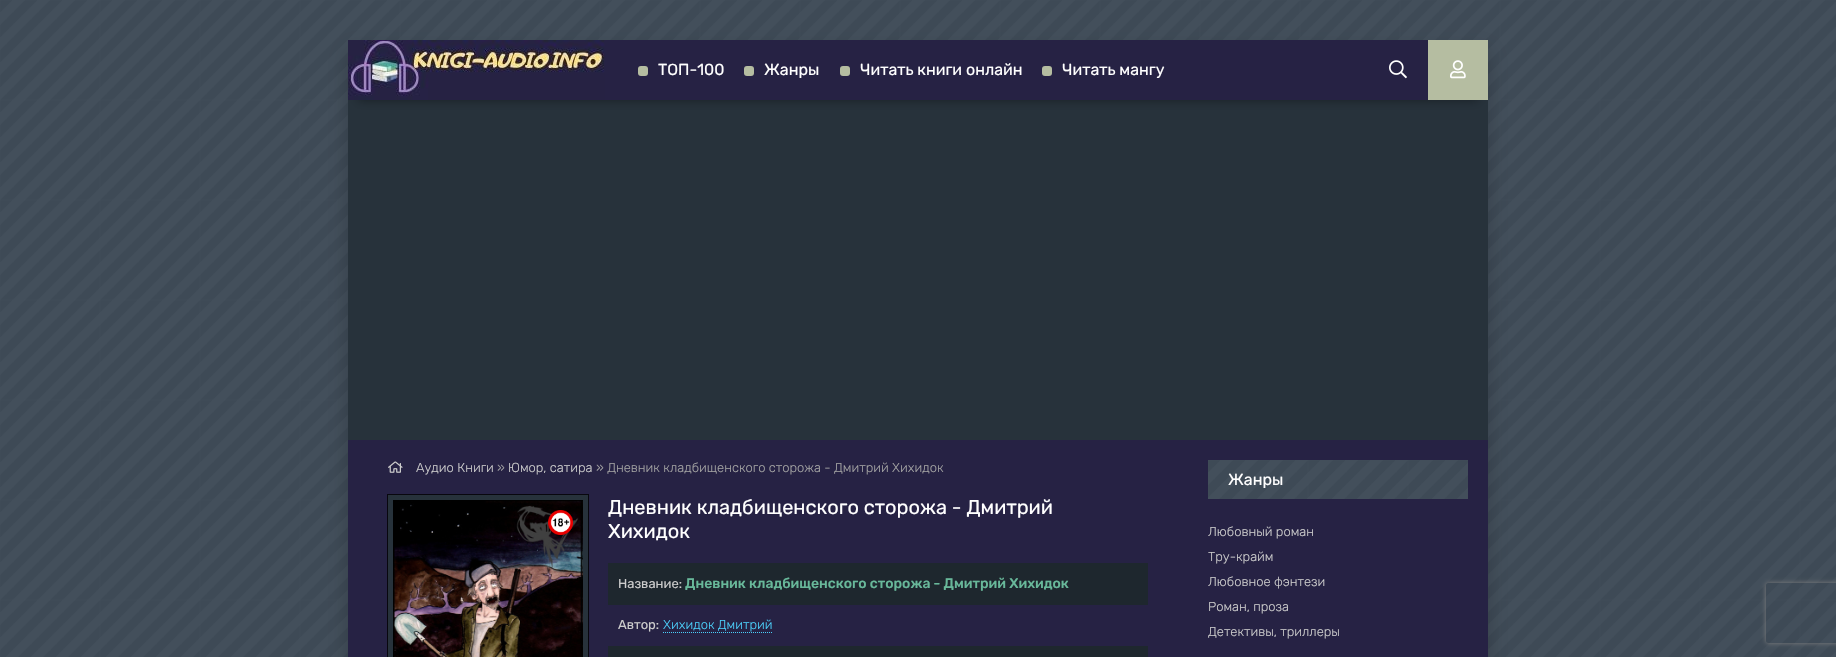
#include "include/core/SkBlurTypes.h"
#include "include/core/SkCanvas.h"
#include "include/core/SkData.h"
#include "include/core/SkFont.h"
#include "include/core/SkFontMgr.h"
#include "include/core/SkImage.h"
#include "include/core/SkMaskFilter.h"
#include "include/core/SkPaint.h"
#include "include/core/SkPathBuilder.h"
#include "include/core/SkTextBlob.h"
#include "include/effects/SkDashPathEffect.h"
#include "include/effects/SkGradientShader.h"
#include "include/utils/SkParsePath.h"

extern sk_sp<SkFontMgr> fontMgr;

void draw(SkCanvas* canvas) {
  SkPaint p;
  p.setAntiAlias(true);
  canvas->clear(SK_ColorWHITE);
  canvas->drawImageRect(SkImages::DeferredFromEncodedData(SkData::MakeFromFileName("images/1.png")), SkRect::MakeLTRB(0, 0, 1836, 657), SkSamplingOptions());
  p.setColor(SkColorSetARGB(51, 0, 0, 0));
  p.setMaskFilter(SkMaskFilter::MakeBlur(kNormal_SkBlurStyle, 10));
  canvas->drawRect(SkRect::MakeLTRB(348, 50, 1488, 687), p);
  p.setMaskFilter(nullptr);
  p.setColor(SkColorSetRGB(39, 50, 59));
  canvas->drawRect(SkRect::MakeLTRB(348, 100, 1488, 440), p);
  p.setColor(SkColorSetARGB(102, 0, 0, 0));
  p.setMaskFilter(SkMaskFilter::MakeBlur(kNormal_SkBlurStyle, 5));
  canvas->drawRect(SkRect::MakeLTRB(358, 60, 1478, 100), p);
  p.setMaskFilter(nullptr);
  p.setColor(SkColorSetRGB(38, 34, 68));
  canvas->drawRect(SkRect::MakeLTRB(605, 40, 1428, 100), p);
  canvas->drawImageRect(SkImages::DeferredFromEncodedData(SkData::MakeFromFileName("images/2.png")), SkRect::MakeLTRB(348, 40, 605, 100), SkSamplingOptions());
  p.setColor(SkColorSetRGB(181, 189, 161));
  canvas->drawRoundRect(SkRect::MakeLTRB(638, 66, 648, 76), 3, 3, p);
  canvas->drawRoundRect(SkRect::MakeLTRB(744, 66, 754, 76), 3, 3, p);
  canvas->drawRoundRect(SkRect::MakeLTRB(840, 66, 850, 76), 3, 3, p);
  canvas->drawRoundRect(SkRect::MakeLTRB(1042, 66, 1052, 76), 3, 3, p);
  canvas->drawImageRect(SkImages::DeferredFromEncodedData(SkData::MakeFromFileName("images/3.png")), SkRect::MakeLTRB(1389, 60, 1407, 79), SkSamplingOptions());
  canvas->drawRect(SkRect::MakeLTRB(1428, 40, 1488, 100), p);
  canvas->drawImageRect(SkImages::DeferredFromEncodedData(SkData::MakeFromFileName("images/4.png")), SkRect::MakeLTRB(1450, 60, 1466, 79), SkSamplingOptions());
  p.setColor(SkColorSetRGB(38, 34, 68));
  canvas->drawRect(SkRect::MakeLTRB(348, 440, 1488, 657), p);
  canvas->drawImageRect(SkImages::DeferredFromEncodedData(SkData::MakeFromFileName("images/5.png")), SkRect::MakeLTRB(388, 461, 403, 473), SkSamplingOptions());
  p.setStyle(SkPaint::kStroke_Style);
  p.setStrokeWidth(1);
  p.setColor(SkColorSetRGB(8, 7, 14));
  canvas->drawRect(SkRect::MakeLTRB(387.5f, 494.5f, 588.5f, 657.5f), p);
  p.setStrokeWidth(5);
  p.setColor(SkColorSetRGB(39, 50, 59));
  canvas->drawRect(SkRect::MakeLTRB(390.5f, 497.5f, 585.5f, 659.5f), p);
  canvas->drawImageRect(SkImages::DeferredFromEncodedData(SkData::MakeFromFileName("images/6.png")), SkRect::MakeLTRB(393, 500, 583, 657), SkSamplingOptions());
  canvas->drawImageRect(SkImages::DeferredFromEncodedData(SkData::MakeFromFileName("images/7.png")), SkRect::MakeLTRB(548, 510, 573, 535), SkSamplingOptions());
  p.setStyle(SkPaint::kFill_Style);
  p.setColor(SkColorSetRGB(30, 39, 46));
  canvas->drawRect(SkRect::MakeLTRB(608, 563, 1148, 605), p);
  p.setStyle(SkPaint::kStroke_Style);
  p.setStrokeWidth(1);
  p.setColor(SkColorSetRGB(75, 207, 250));
  p.setPathEffect(SkDashPathEffect::Make({{1, 1}}, 0));
  canvas->drawPath(SkPathBuilder().moveTo(663, 632.5f).lineTo(772, 632.5f).detach(), p);
  p.setPathEffect(nullptr);
  p.setStyle(SkPaint::kFill_Style);
  p.setColor(SkColorSetRGB(30, 39, 46));
  canvas->drawRect(SkRect::MakeLTRB(608, 646, 1148, 657), p);
  canvas->drawImageRect(SkImages::DeferredFromEncodedData(SkData::MakeFromFileName("images/8.png")), SkRect::MakeLTRB(1208, 460, 1468, 499), SkSamplingOptions());
  canvas->save();
  canvas->clipPath(SkPathBuilder(SkPathFillType::kEvenOdd).moveTo(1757, 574).lineTo(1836, 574).lineTo(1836, 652).lineTo(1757, 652).close().moveTo(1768, 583).lineTo(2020, 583).cubicTo(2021, 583, 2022, 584, 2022, 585).lineTo(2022, 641).cubicTo(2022, 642, 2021, 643, 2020, 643).lineTo(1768, 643).cubicTo(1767, 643, 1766, 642, 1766, 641).lineTo(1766, 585).cubicTo(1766, 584, 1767, 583, 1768, 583).close().detach(), true);
  p.setColor(SkColorSetRGB(128, 128, 128));
  p.setMaskFilter(SkMaskFilter::MakeBlur(kNormal_SkBlurStyle, 2.5f));
  canvas->drawRoundRect(SkRect::MakeLTRB(1766, 583, 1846, 643), 2, 2, p);
  p.setMaskFilter(nullptr);
  canvas->restore();
  SkFont font1(fontMgr->matchFamilyStyle("Rubik", SkFontStyle::Normal()), 16);
  font1.setSubpixel(true);
  p.setColor(SK_ColorWHITE);
  canvas->drawString("ТОП-100", 658, 75, font1, p);
  canvas->drawString("Жанры", 764, 75, font1, p);
  canvas->drawString("Читать книги онлайн", 860, 75, font1, p);
  canvas->drawString("Читать мангу", 1062, 75, font1, p);
  SkFont font2(fontMgr->matchFamilyStyle("Rubik", SkFontStyle(300, SkFontStyle::kNormal_Width, SkFontStyle::kUpright_Slant)), 13);
  font2.setSubpixel(true);
  p.setColor(SkColorSetRGB(204, 204, 204));
  canvas->drawString("Аудио Книги", 416, 472, font2, p);
  p.setColor(SkColorSetRGB(163, 163, 163));
  canvas->drawString("»", 497, 472, font2, p);
  p.setColor(SkColorSetRGB(204, 204, 204));
  canvas->drawString("Юмор, сатира", 508, 472, font2, p);
  p.setColor(SkColorSetRGB(163, 163, 163));
  canvas->drawString("» Дневник кладбищенского сторожа - Дмитрий Хихидок", 596, 472, font2, p);
  SkFont font3(fontMgr->matchFamilyStyle("Rubik", SkFontStyle::Normal()), 20);
  font3.setSubpixel(true);
  p.setColor(SK_ColorWHITE);
  canvas->drawString("Дневник кладбищенского сторожа - Дмитрий", 608, 514, font3, p);
  canvas->drawString("Хихидок", 608, 538, font3, p);
  SkFont font4(fontMgr->matchFamilyStyle("Rubik", SkFontStyle::Normal()), 13);
  font4.setSubpixel(true);
  p.setColor(SkColorSetRGB(204, 204, 204));
  canvas->drawString("Название:", 618, 588, font4, p);
  SkFont font5(fontMgr->matchFamilyStyle("Rubik", SkFontStyle(500, SkFontStyle::kNormal_Width, SkFontStyle::kUpright_Slant)), 14);
  font5.setSubpixel(true);
  p.setColor(SkColorSetRGB(104, 184, 154));
  canvas->drawString("Дневник кладбищенского сторожа - Дмитрий Хихидок", 685, 588, font5, p);
  p.setColor(SkColorSetRGB(204, 204, 204));
  canvas->drawString("Автор:", 618, 629, font4, p);
  p.setColor(SkColorSetRGB(75, 207, 250));
  canvas->drawString("Хихидок Дмитрий", 663, 629, font2, p);
  p.setColor(SK_ColorWHITE);
  canvas->drawString("Жанры", 1228, 485, font1, p);
  p.setColor(SkColorSetRGB(204, 204, 204));
  canvas->drawString("Любовный роман", 1208, 536, font2, p);
  canvas->drawString("Тру-крайм", 1208, 561, font2, p);
  canvas->drawString("Любовное фэнтези", 1208, 586, font2, p);
  canvas->drawString("Роман, проза", 1208, 611, font2, p);
  canvas->drawString("Детективы, триллеры", 1208, 636, font2, p);
}
